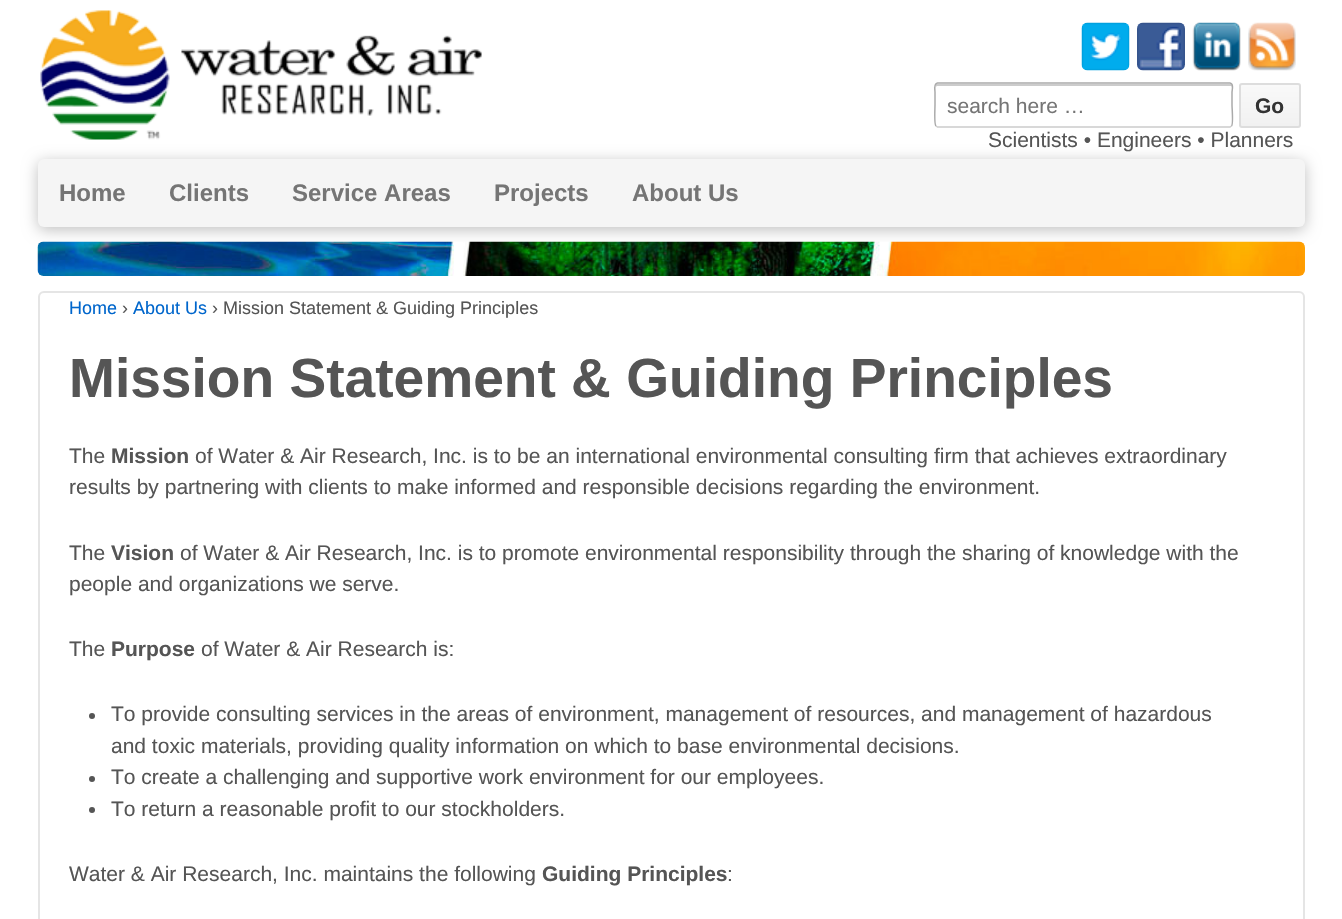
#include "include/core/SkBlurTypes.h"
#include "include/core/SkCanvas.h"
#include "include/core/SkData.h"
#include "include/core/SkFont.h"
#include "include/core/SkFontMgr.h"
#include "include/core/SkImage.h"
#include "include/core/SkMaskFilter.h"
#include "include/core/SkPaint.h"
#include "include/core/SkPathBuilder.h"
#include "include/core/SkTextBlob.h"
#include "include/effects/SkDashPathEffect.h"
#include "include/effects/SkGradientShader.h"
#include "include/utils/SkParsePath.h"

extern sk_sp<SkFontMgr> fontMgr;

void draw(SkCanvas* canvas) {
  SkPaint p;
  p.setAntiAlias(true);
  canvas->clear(SK_ColorWHITE);
  p.setColor(SkColorSetARGB(64, 0, 0, 0));
  p.setMaskFilter(SkMaskFilter::MakeBlur(kNormal_SkBlurStyle, 7.5f));
  canvas->drawRoundRect(SkRect::MakeLTRB(38, 162, 1305, 230), 6, 6, p);
  p.setMaskFilter(nullptr);
  canvas->drawImageRect(SkImages::DeferredFromEncodedData(SkData::MakeFromFileName("images/1.png")), SkRect::MakeLTRB(40, 10, 482, 140), SkSamplingOptions());
  canvas->drawImageRect(SkImages::DeferredFromEncodedData(SkData::MakeFromFileName("images/2.png")), SkRect::MakeLTRB(1081, 22, 1130, 71), SkSamplingOptions());
  canvas->drawImageRect(SkImages::DeferredFromEncodedData(SkData::MakeFromFileName("images/3.png")), SkRect::MakeLTRB(1137, 22, 1185, 71), SkSamplingOptions());
  canvas->drawImageRect(SkImages::DeferredFromEncodedData(SkData::MakeFromFileName("images/4.png")), SkRect::MakeLTRB(1192, 22, 1241, 71), SkSamplingOptions());
  canvas->drawImageRect(SkImages::DeferredFromEncodedData(SkData::MakeFromFileName("images/5.png")), SkRect::MakeLTRB(1248, 22, 1296, 71), SkSamplingOptions());
  p.setColor(SkColorSetRGB(204, 204, 204));
  canvas->drawPath(SkPathBuilder().moveTo(938, 86).lineTo(1230, 86).cubicTo(1231, 86, 1232, 86, 1232, 87).cubicTo(1232, 86, 1232, 84, 1230, 84).lineTo(938, 84).lineTo(936, 84).lineTo(936, 87).cubicTo(936, 86, 937, 86, 938, 86).close().detach(), p);
  p.setStyle(SkPaint::kStroke_Style);
  p.setStrokeWidth(1.5f);
  canvas->drawPath(SkPathBuilder().moveTo(1231.5f, 126).lineTo(1230, 127).lineTo(937.5f, 127).lineTo(936, 126).detach(), p);
  p.setColor(SkColorSetRGB(170, 170, 170));
  canvas->drawPath(SkPathBuilder().moveTo(936, 126).cubicTo(934, 124.5f, 935, 108, 935, 105).lineTo(935, 92).cubicTo(935, 91, 933.5f, 83.5f, 937.5f, 83).lineTo(1230, 83).cubicTo(1234, 83.5f, 1232, 91, 1232, 92).lineTo(1232, 105).cubicTo(1232, 108, 1233.5f, 124.5f, 1231.5f, 126).detach(), p);
  canvas->save();
  canvas->clipPath(SkPathBuilder().moveTo(1242, 83).lineTo(1298, 83).cubicTo(1299.5f, 83, 1301, 84.5f, 1301, 86).lineTo(1301, 125).cubicTo(1301, 126.5f, 1299.5f, 128, 1298, 128).lineTo(1242, 128).cubicTo(1240.5f, 128, 1239, 126.5f, 1239, 125).lineTo(1239, 86).cubicTo(1239, 84.5f, 1240.5f, 83, 1242, 83).close().detach(), true);
  p.setStyle(SkPaint::kFill_Style);
  {
    const SkColor colors[] = {SkColorSetRGB(249, 249, 249), SkColorSetRGB(241, 241, 241)};
    const float stops[] = {0, 1};
    const SkPoint ends[] = {{1270, 84}, {1270, 126}};
    p.setShader(SkGradientShader::MakeLinear(ends, colors, stops, 2, SkTileMode::kClamp));
    p.setAlpha(255);
  }
  canvas->drawRect(SkRect::MakeLTRB(1239, 84, 1301, 126), p);
  canvas->restore();
  p.setStyle(SkPaint::kStroke_Style);
  p.setStrokeWidth(2);
  p.setShader(nullptr);
  p.setColor(SkColorSetRGB(221, 221, 221));
  canvas->drawRoundRect(SkRect::MakeLTRB(1240, 84, 1300, 127), 2, 2, p);
  p.setStyle(SkPaint::kFill_Style);
  p.setColor(SkColorSetRGB(245, 245, 245));
  canvas->drawRoundRect(SkRect::MakeLTRB(38, 159, 1305, 227), 6, 6, p);
  canvas->drawImageRect(SkImages::DeferredFromEncodedData(SkData::MakeFromFileName("images/6.png")), SkRect::MakeLTRB(37, 241, 1305, 276), SkSamplingOptions());
  p.setStyle(SkPaint::kStroke_Style);
  p.setColor(SkColorSetRGB(229, 229, 229));
  canvas->drawRoundRect(SkRect::MakeLTRB(39, 292, 1304, 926), 5, 5, p);
  p.setStyle(SkPaint::kFill_Style);
  p.setColor(SkColorSetRGB(85, 85, 85));
  canvas->drawCircle(92, 716, 3, p);
  canvas->drawCircle(92, 779, 3, p);
  canvas->drawCircle(92, 810, 3, p);
  SkFont font1(fontMgr->matchFamilyStyle("Liberation Sans", SkFontStyle::Normal()), 21);
  font1.setSubpixel(true);
  p.setColor(SkColorSetRGB(117, 117, 117));
  canvas->drawString("search here …", 947, 113, font1, p);
  SkFont font2(fontMgr->matchFamilyStyle("Liberation Sans", SkFontStyle::Bold()), 21);
  font2.setSubpixel(true);
  p.setColor(SkColorSetRGB(51, 51, 51));
  canvas->drawString("Go", 1255, 113, font2, p);
  p.setColor(SkColorSetRGB(85, 85, 85));
  canvas->drawString("Scientists • Engineers • Planners", 988, 147, font1, p);
  SkFont font3(fontMgr->matchFamilyStyle("Liberation Sans", SkFontStyle::Bold()), 24);
  font3.setSubpixel(true);
  p.setColor(SkColorSetRGB(117, 117, 117));
  canvas->drawString("Home", 59, 201, font3, p);
  canvas->drawString("Clients", 169, 201, font3, p);
  canvas->drawString("Service Areas", 292, 201, font3, p);
  canvas->drawString("Projects", 494, 201, font3, p);
  canvas->drawString("About Us", 632, 201, font3, p);
  SkFont font4(fontMgr->matchFamilyStyle("Liberation Sans", SkFontStyle::Normal()), 18);
  font4.setSubpixel(true);
  p.setColor(SkColorSetRGB(0, 102, 204));
  canvas->drawString("Home", 69, 314, font4, p);
  p.setColor(SkColorSetRGB(85, 85, 85));
  canvas->drawString("›", 122, 314, font4, p);
  p.setColor(SkColorSetRGB(0, 102, 204));
  canvas->drawString("About Us", 133, 314, font4, p);
  p.setColor(SkColorSetRGB(85, 85, 85));
  canvas->drawString("› Mission Statement & Guiding Principles", 212, 314, font4, p);
  SkFont font5(fontMgr->matchFamilyStyle("Liberation Sans", SkFontStyle::Bold()), 55.1f);
  font5.setSubpixel(true);
  canvas->drawString("Mission Statement & Guiding Principles", 69, 397, font5, p);
  canvas->drawString("The", 69, 463, font1, p);
  canvas->drawString("Mission", 111, 463, font2, p);
  canvas->drawString("of Water & Air Research, Inc. is to be an international environmental consulting firm that achieves extraordinary", 195, 463, font1, p);
  canvas->drawString("results by partnering with clients to make informed and responsible decisions regarding the environment.", 69, 494, font1, p);
  canvas->drawString("The", 69, 560, font1, p);
  canvas->drawString("Vision", 111, 560, font2, p);
  canvas->drawString("of Water & Air Research, Inc. is to promote environmental responsibility through the sharing of knowledge with the", 180, 560, font1, p);
  canvas->drawString("people and organizations we serve.", 69, 591, font1, p);
  canvas->drawString("The", 69, 656, font1, p);
  canvas->drawString("Purpose", 111, 656, font2, p);
  canvas->drawString("of Water & Air Research is:", 201, 656, font1, p);
  canvas->drawString("To provide consulting services in the areas of environment, management of resources, and management of hazardous", 111, 721, font1, p);
  canvas->drawString("and toxic materials, providing quality information on which to base environmental decisions.", 111, 753, font1, p);
  canvas->drawString("To create a challenging and supportive work environment for our employees.", 111, 784, font1, p);
  canvas->drawString("To return a reasonable profit to our stockholders.", 111, 816, font1, p);
  canvas->drawString("Water & Air Research, Inc. maintains the following", 69, 881, font1, p);
  canvas->drawString("Guiding Principles", 542, 881, font2, p);
  canvas->drawString(":", 727, 881, font1, p);
}
